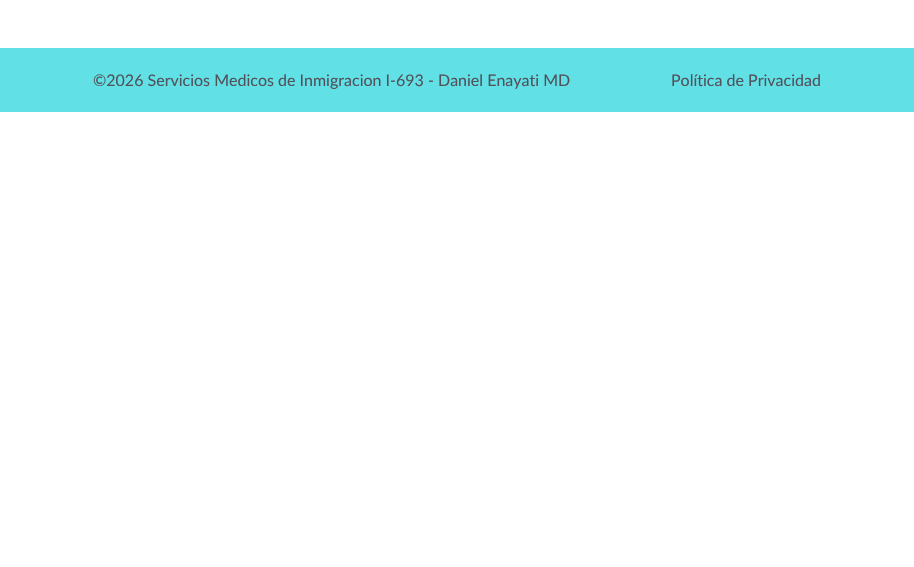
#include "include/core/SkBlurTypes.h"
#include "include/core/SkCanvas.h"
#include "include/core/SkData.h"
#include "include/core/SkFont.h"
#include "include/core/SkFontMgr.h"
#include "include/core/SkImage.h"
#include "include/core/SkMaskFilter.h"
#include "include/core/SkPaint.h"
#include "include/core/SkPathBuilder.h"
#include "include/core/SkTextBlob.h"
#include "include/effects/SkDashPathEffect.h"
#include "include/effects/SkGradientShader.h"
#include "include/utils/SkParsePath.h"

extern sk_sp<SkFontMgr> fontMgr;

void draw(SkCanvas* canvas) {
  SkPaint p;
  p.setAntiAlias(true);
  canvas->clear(SK_ColorWHITE);
  p.setColor(SkColorSetRGB(97, 224, 230));
  canvas->drawRect(SkRect::MakeLTRB(0, 48, 914, 112), p);
  SkFont font1(fontMgr->matchFamilyStyle("Lato", SkFontStyle::Normal()), 16);
  font1.setSubpixel(true);
  p.setColor(SkColorSetRGB(82, 82, 91));
  canvas->drawString("©2026 Servicios Medicos de Inmigracion I-693 - Daniel Enayati MD", 93, 86, font1, p);
  canvas->drawString("Política de Privacidad", 671, 86, font1, p);
}
